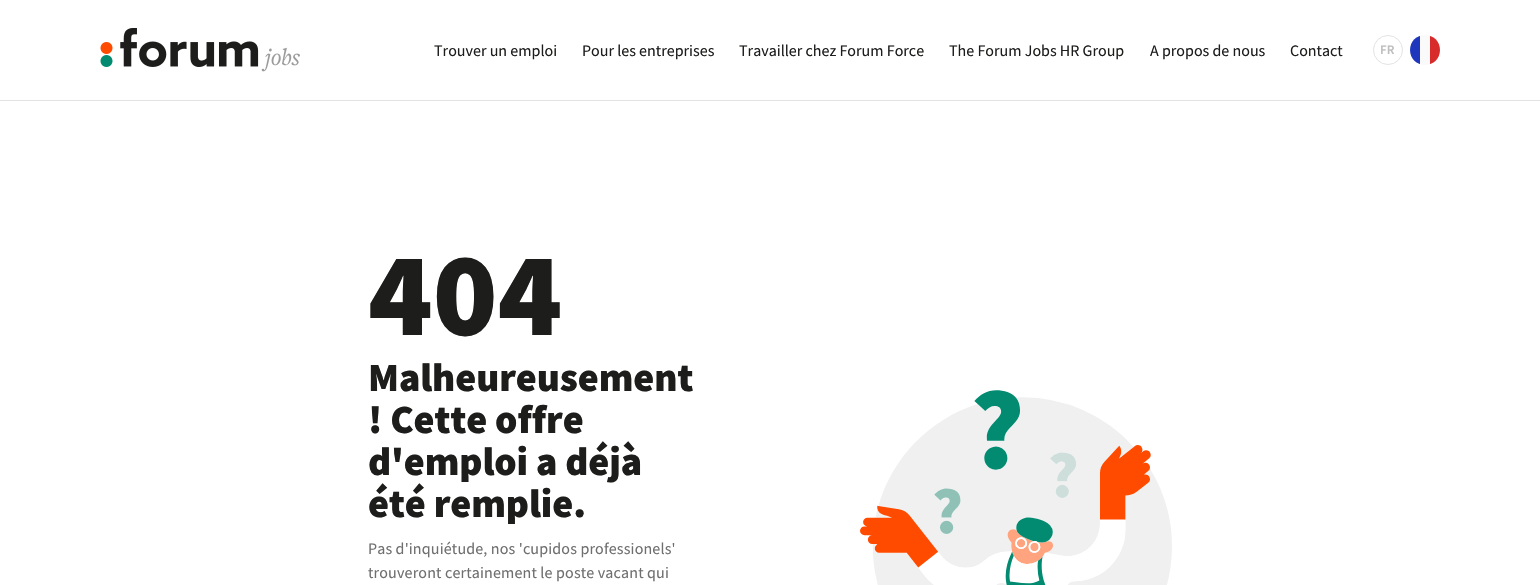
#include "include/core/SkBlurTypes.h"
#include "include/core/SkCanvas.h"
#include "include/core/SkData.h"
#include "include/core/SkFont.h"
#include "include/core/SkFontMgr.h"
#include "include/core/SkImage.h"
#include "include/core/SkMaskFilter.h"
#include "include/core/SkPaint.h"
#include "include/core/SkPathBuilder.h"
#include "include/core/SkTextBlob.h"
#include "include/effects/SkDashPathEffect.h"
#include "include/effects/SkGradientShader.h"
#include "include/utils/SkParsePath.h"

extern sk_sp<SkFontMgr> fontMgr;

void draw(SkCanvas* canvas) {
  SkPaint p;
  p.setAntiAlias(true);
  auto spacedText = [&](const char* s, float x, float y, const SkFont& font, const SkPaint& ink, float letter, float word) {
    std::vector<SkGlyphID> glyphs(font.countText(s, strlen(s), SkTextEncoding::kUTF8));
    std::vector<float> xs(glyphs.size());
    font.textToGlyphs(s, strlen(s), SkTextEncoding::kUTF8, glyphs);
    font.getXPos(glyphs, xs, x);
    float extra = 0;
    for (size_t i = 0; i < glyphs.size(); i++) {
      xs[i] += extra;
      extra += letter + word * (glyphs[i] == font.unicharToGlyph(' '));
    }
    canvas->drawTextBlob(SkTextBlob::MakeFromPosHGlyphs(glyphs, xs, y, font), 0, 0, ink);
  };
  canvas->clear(SK_ColorWHITE);
  p.setColor(SkColorSetRGB(227, 227, 227));
  canvas->drawRect(SkRect::MakeLTRB(0, 100, 1540, 101), p);
  canvas->drawImageRect(SkImages::DeferredFromEncodedData(SkData::MakeFromFileName("images/1.png")), SkRect::MakeLTRB(100, 28, 300, 72), SkSamplingOptions());
  p.setStyle(SkPaint::kStroke_Style);
  p.setStrokeWidth(1);
  canvas->drawCircle(1388, 50, 14.5f, p);
  canvas->save();
  canvas->clipPath(SkPathBuilder().moveTo(1425, 35).cubicTo(1433.5f, 35, 1440, 41.5f, 1440, 50).cubicTo(1440, 58.5f, 1433.5f, 65, 1425, 65).cubicTo(1416.5f, 65, 1410, 58.5f, 1410, 50).cubicTo(1410, 41.5f, 1416.5f, 35, 1425, 35).close().detach(), true);
  p.setStyle(SkPaint::kFill_Style);
  p.setColor(SkColorSetRGB(216, 43, 43));
  canvas->drawRect(SkRect::MakeLTRB(1430, 36, 1440, 64), p);
  p.setColor(SkColorSetRGB(250, 250, 250));
  canvas->drawRect(SkRect::MakeLTRB(1420, 35, 1430, 65), p);
  p.setColor(SkColorSetRGB(31, 55, 188));
  canvas->drawRect(SkRect::MakeLTRB(1410, 36, 1420, 64), p);
  canvas->restore();
  canvas->drawImageRect(SkImages::DeferredFromEncodedData(SkData::MakeFromFileName("images/2.png")), SkRect::MakeLTRB(860, 390, 1172, 585), SkSamplingOptions());
  SkFont font1(fontMgr->matchFamilyStyle("Source Sans Pro", SkFontStyle::Normal()), 16);
  font1.setSubpixel(true);
  p.setColor(SkColorSetRGB(29, 29, 27));
  canvas->drawString("Trouver un emploi", 434, 56, font1, p);
  canvas->drawString("Pour les entreprises", 582, 56, font1, p);
  canvas->drawString("Travailler chez Forum Force", 739, 56, font1, p);
  canvas->drawString("The Forum Jobs HR Group", 949, 56, font1, p);
  canvas->drawString("A propos de nous", 1150, 56, font1, p);
  canvas->drawString("Contact", 1290, 56, font1, p);
  SkFont font2(fontMgr->matchFamilyStyle("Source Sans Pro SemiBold", SkFontStyle(600, SkFontStyle::kNormal_Width, SkFontStyle::kUpright_Slant)), 13);
  font2.setSubpixel(true);
  p.setColor(SkColorSetRGB(190, 190, 190));
  canvas->drawString("FR", 1380, 54, font2, p);
  SkFont font3(fontMgr->matchFamilyStyle("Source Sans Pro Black", SkFontStyle(900, SkFontStyle::kNormal_Width, SkFontStyle::kUpright_Slant)), 120);
  font3.setSubpixel(true);
  p.setColor(SkColorSetRGB(29, 29, 27));
  spacedText("404", 368, 335, font3, p, -0.1f, 0);
  SkFont font4(fontMgr->matchFamilyStyle("Source Sans Pro Black", SkFontStyle(900, SkFontStyle::kNormal_Width, SkFontStyle::kUpright_Slant)), 40);
  font4.setSubpixel(true);
  spacedText("Malheureusement", 368, 391, font4, p, -0.1f, 0);
  spacedText("! Cette offre", 368, 433, font4, p, -0.1f, 0);
  spacedText("d'emploi a déjà", 368, 475, font4, p, -0.1f, 0);
  spacedText("été remplie.", 368, 517, font4, p, -0.1f, 0);
  p.setColor(SkColorSetRGB(111, 111, 111));
  spacedText("Pas d'inquiétude, nos 'cupidos professionels'", 368, 554, font1, p, 0.15f, 0);
  spacedText("trouveront certainement le poste vacant qui", 368, 578, font1, p, 0.15f, 0);
}
